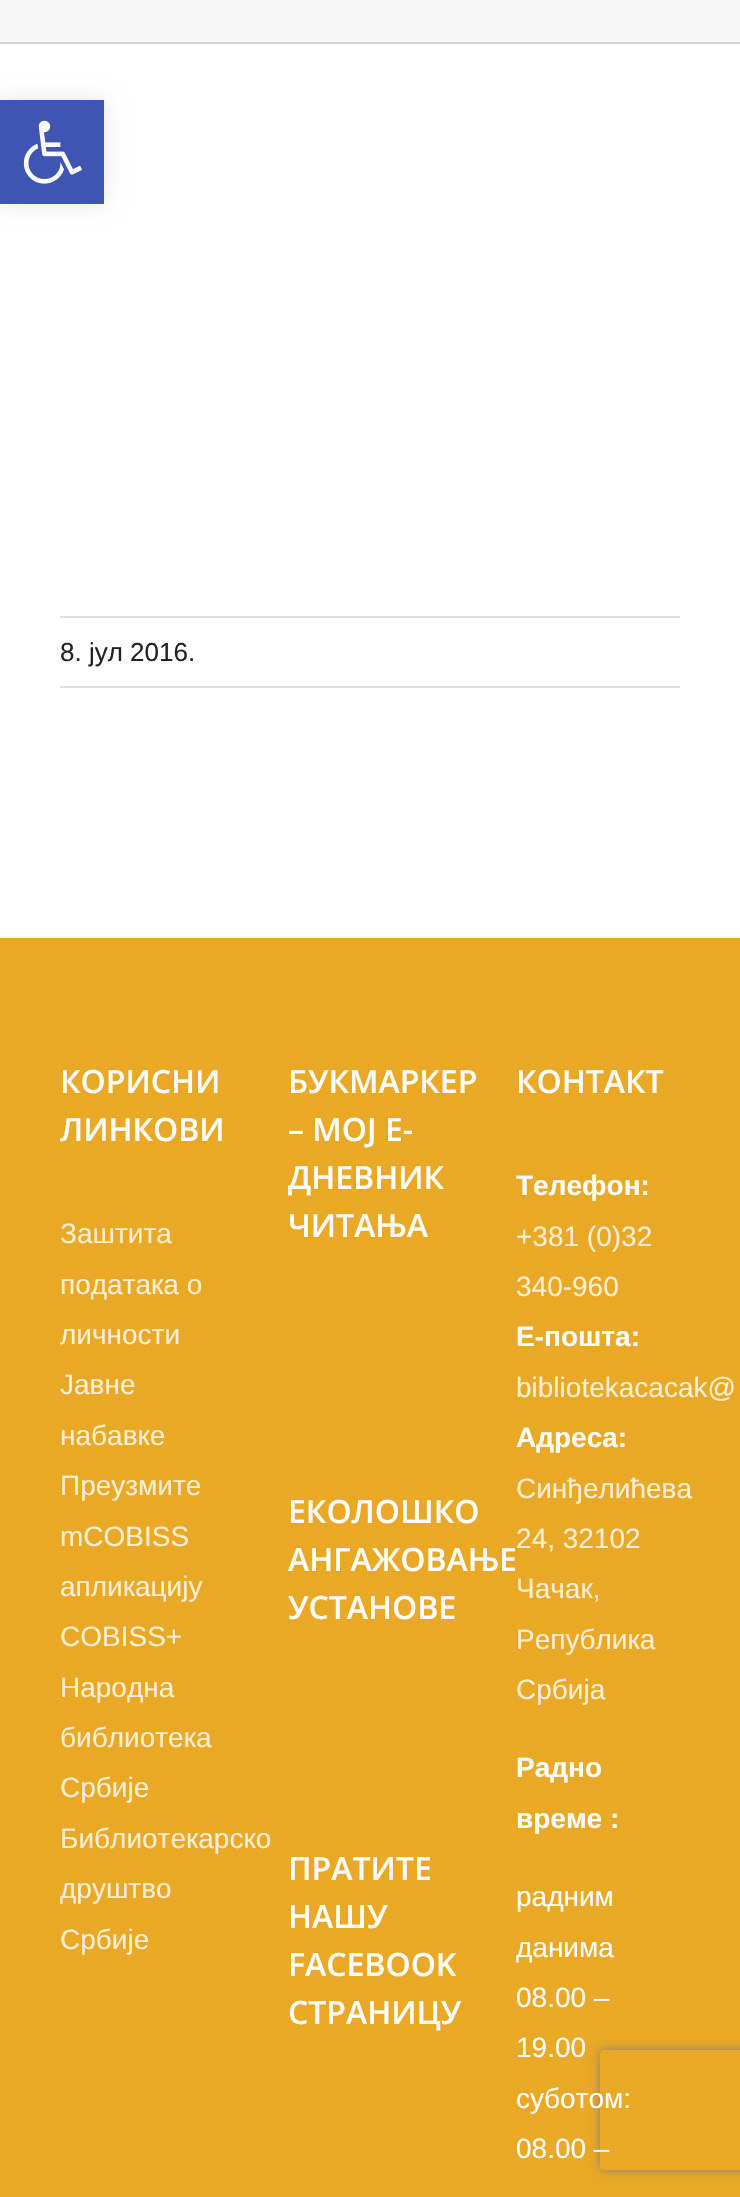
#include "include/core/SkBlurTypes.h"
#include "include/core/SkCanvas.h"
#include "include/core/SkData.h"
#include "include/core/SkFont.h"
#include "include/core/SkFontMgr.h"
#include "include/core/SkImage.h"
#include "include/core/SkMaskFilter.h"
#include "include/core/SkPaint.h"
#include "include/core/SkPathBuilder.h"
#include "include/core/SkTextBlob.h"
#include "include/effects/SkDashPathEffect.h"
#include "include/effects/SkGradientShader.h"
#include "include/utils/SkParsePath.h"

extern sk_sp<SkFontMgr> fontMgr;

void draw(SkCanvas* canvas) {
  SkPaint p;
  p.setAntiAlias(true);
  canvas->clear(SK_ColorWHITE);
  p.setColor(SkColorSetARGB(26, 0, 0, 0));
  p.setMaskFilter(SkMaskFilter::MakeBlur(kNormal_SkBlurStyle, 10));
  canvas->drawRect(SkRect::MakeLTRB(0, 100, 104, 204), p);
  p.setMaskFilter(nullptr);
  p.setColor(SkColorSetRGB(64, 84, 178));
  canvas->drawRect(SkRect::MakeLTRB(0, 100, 104, 204), p);
  canvas->drawImageRect(SkImages::DeferredFromEncodedData(SkData::MakeFromFileName("images/1.png")), SkRect::MakeLTRB(23, 120, 82, 184), SkSamplingOptions());
  p.setColor(SkColorSetRGB(246, 246, 246));
  canvas->drawRect(SkRect::MakeLTRB(0, 0, 740, 42), p);
  p.setColor(SkColorSetRGB(210, 211, 212));
  canvas->drawRect(SkRect::MakeLTRB(0, 42, 740, 44), p);
  p.setColor(SkColorSetRGB(224, 222, 222));
  canvas->drawRect(SkRect::MakeLTRB(60, 616, 680, 618), p);
  canvas->drawRect(SkRect::MakeLTRB(60, 686, 680, 688), p);
  p.setColor(SkColorSetRGB(233, 168, 37));
  canvas->drawRect(SkRect::MakeLTRB(0, 938, 740, 2197), p);
  canvas->save();
  canvas->clipPath(SkPathBuilder(SkPathFillType::kEvenOdd).moveTo(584, 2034).lineTo(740, 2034).lineTo(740, 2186).lineTo(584, 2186).close().moveTo(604, 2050).lineTo(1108, 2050).cubicTo(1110, 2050, 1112, 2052, 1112, 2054).lineTo(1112, 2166).cubicTo(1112, 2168, 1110, 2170, 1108, 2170).lineTo(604, 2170).cubicTo(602, 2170, 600, 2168, 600, 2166).lineTo(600, 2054).cubicTo(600, 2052, 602, 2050, 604, 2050).close().detach(), true);
  p.setColor(SkColorSetRGB(128, 128, 128));
  p.setMaskFilter(SkMaskFilter::MakeBlur(kNormal_SkBlurStyle, 5));
  canvas->drawRoundRect(SkRect::MakeLTRB(600, 2050, 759, 2170), 4, 4, p);
  p.setMaskFilter(nullptr);
  canvas->restore();
  SkFont font1(fontMgr->matchFamilyStyle("Liberation Sans", SkFontStyle::Normal()), 26);
  font1.setSubpixel(true);
  p.setColor(SkColorSetRGB(35, 35, 35));
  canvas->drawString("8. јул 2016.", 60, 661, font1, p);
  SkFont font2(fontMgr->matchFamilyStyle("Open Sans", SkFontStyle(600, SkFontStyle::kNormal_Width, SkFontStyle::kUpright_Slant)), 32);
  font2.setSubpixel(true);
  p.setColor(SK_ColorWHITE);
  canvas->drawString("КОРИСНИ", 60, 1093, font2, p);
  canvas->drawString("ЛИНКОВИ", 60, 1141, font2, p);
  SkFont font3(fontMgr->matchFamilyStyle("Liberation Sans", SkFontStyle::Normal()), 28);
  font3.setSubpixel(true);
  p.setColor(SkColorSetRGB(251, 238, 211));
  canvas->drawString("Заштита", 60, 1243, font3, p);
  canvas->drawString("података о", 60, 1294, font3, p);
  canvas->drawString("личности", 60, 1344, font3, p);
  canvas->drawString("Јавне", 60, 1394, font3, p);
  canvas->drawString("набавке", 60, 1445, font3, p);
  canvas->drawString("Преузмите", 60, 1495, font3, p);
  canvas->drawString("mCOBISS", 60, 1546, font3, p);
  canvas->drawString("апликацију", 60, 1596, font3, p);
  canvas->drawString("COBISS+", 60, 1646, font3, p);
  canvas->drawString("Народна", 60, 1697, font3, p);
  canvas->drawString("библиотека", 60, 1747, font3, p);
  canvas->drawString("Србије", 60, 1797, font3, p);
  canvas->drawString("Библиотекарско", 60, 1848, font3, p);
  canvas->drawString("друштво", 60, 1898, font3, p);
  canvas->drawString("Србије", 60, 1949, font3, p);
  p.setColor(SK_ColorWHITE);
  canvas->drawString("БУКМАРКЕР", 288, 1093, font2, p);
  canvas->drawString("– МОЈ Е-", 288, 1141, font2, p);
  canvas->drawString("ДНЕВНИК", 288, 1189, font2, p);
  canvas->drawString("ЧИТАЊА", 288, 1237, font2, p);
  canvas->drawString("ЕКОЛОШКО", 288, 1523, font2, p);
  canvas->drawString("АНГАЖОВАЊЕ", 288, 1571, font2, p);
  canvas->drawString("УСТАНОВЕ", 288, 1619, font2, p);
  canvas->drawString("ПРАТИТЕ", 288, 1880, font2, p);
  canvas->drawString("НАШУ", 288, 1928, font2, p);
  canvas->drawString("FACEBOOK", 288, 1976, font2, p);
  canvas->drawString("СТРАНИЦУ", 288, 2024, font2, p);
  canvas->drawString("КОНТАКТ", 516, 1093, font2, p);
  SkFont font4(fontMgr->matchFamilyStyle("Liberation Sans", SkFontStyle::Bold()), 28);
  font4.setSubpixel(true);
  canvas->drawString("Телефон:", 516, 1195, font4, p);
  p.setColor(SkColorSetRGB(251, 238, 211));
  canvas->drawString("+381 (0)32", 516, 1246, font3, p);
  canvas->drawString("340-960", 516, 1296, font3, p);
  p.setColor(SK_ColorWHITE);
  canvas->drawString("Е-пошта:", 516, 1346, font4, p);
  p.setColor(SkColorSetRGB(251, 238, 211));
  canvas->drawString("bibliotekacacak@", 516, 1397, font3, p);
  p.setColor(SK_ColorWHITE);
  canvas->drawString("Адреса:", 516, 1447, font4, p);
  p.setColor(SkColorSetRGB(251, 238, 211));
  canvas->drawString("Синђелићева", 516, 1498, font3, p);
  canvas->drawString("24, 32102", 516, 1548, font3, p);
  canvas->drawString("Чачак,", 516, 1598, font3, p);
  canvas->drawString("Република", 516, 1649, font3, p);
  canvas->drawString("Србија", 516, 1699, font3, p);
  p.setColor(SK_ColorWHITE);
  canvas->drawString("Радно", 516, 1777, font4, p);
  canvas->drawString("време :", 516, 1828, font4, p);
  canvas->drawString("радним", 516, 1906, font3, p);
  canvas->drawString("данима", 516, 1957, font3, p);
  canvas->drawString("08.00 –", 516, 2007, font3, p);
  canvas->drawString("19.00", 516, 2057, font3, p);
  canvas->drawString("суботом:", 516, 2108, font3, p);
  canvas->drawString("08.00 –", 516, 2158, font3, p);
}
